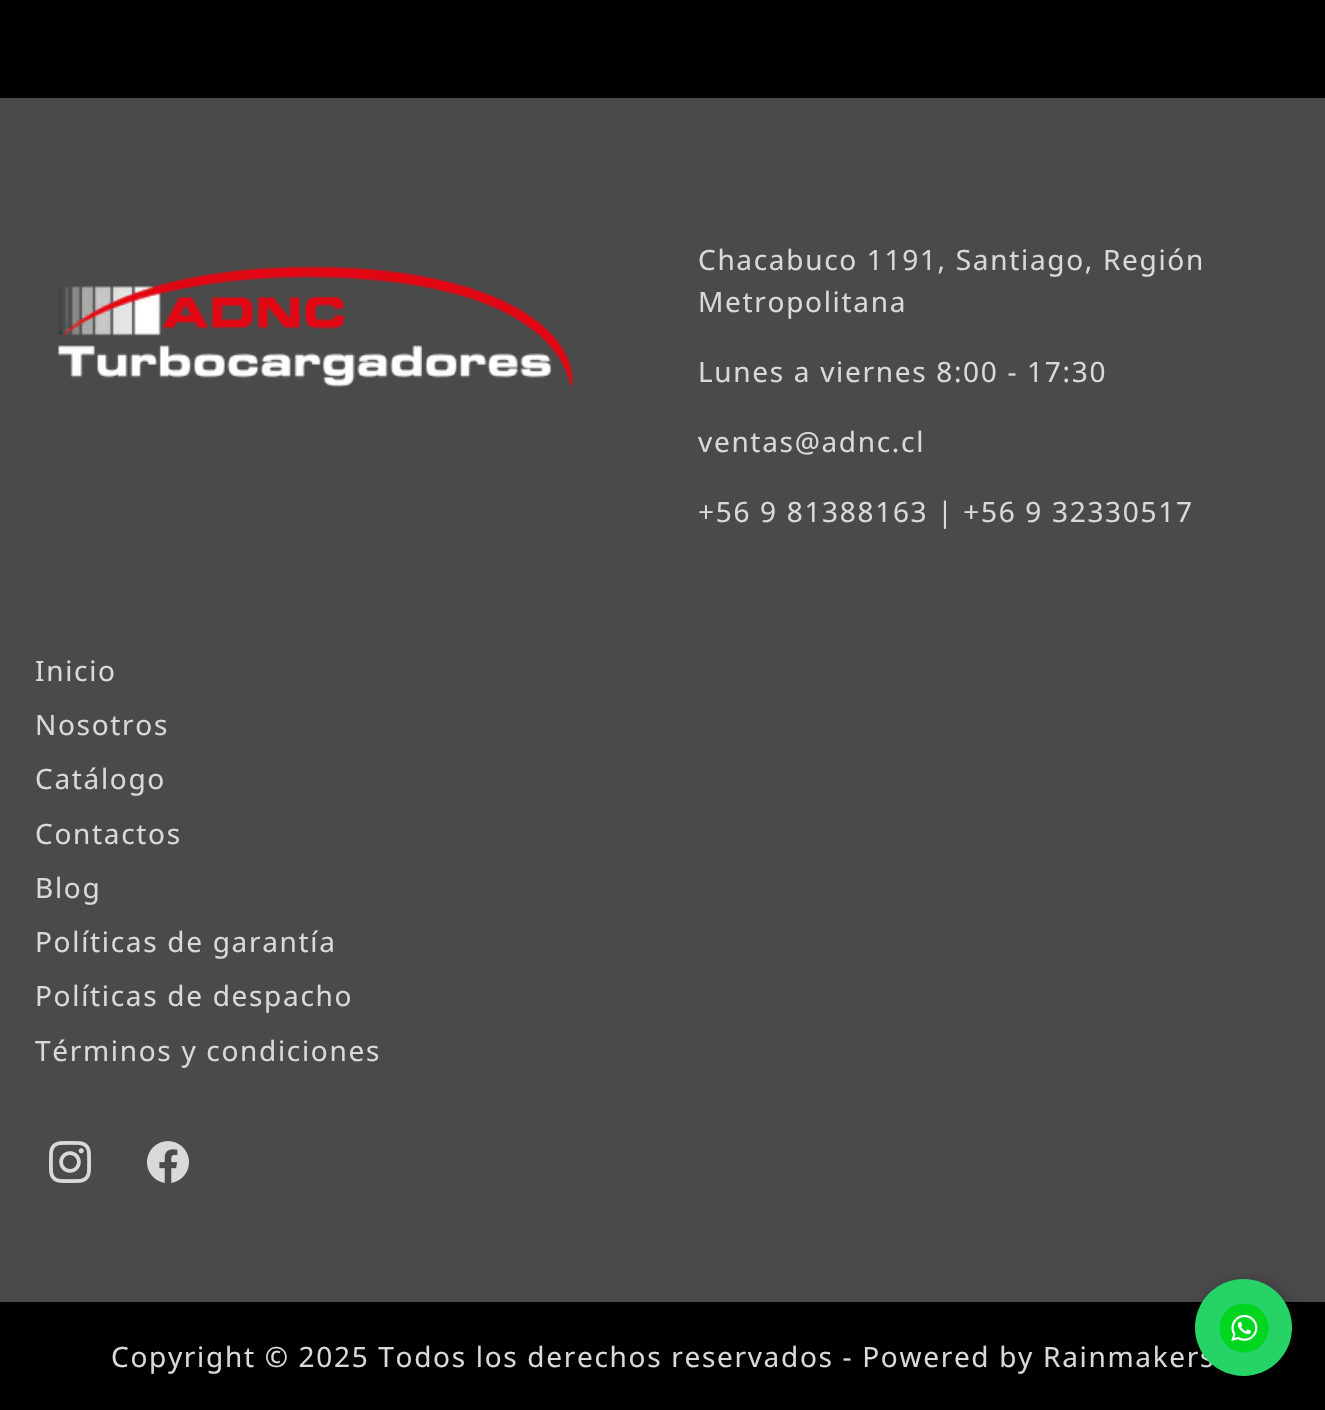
#include "include/core/SkBlurTypes.h"
#include "include/core/SkCanvas.h"
#include "include/core/SkData.h"
#include "include/core/SkFont.h"
#include "include/core/SkFontMgr.h"
#include "include/core/SkImage.h"
#include "include/core/SkMaskFilter.h"
#include "include/core/SkPaint.h"
#include "include/core/SkPathBuilder.h"
#include "include/core/SkTextBlob.h"
#include "include/effects/SkDashPathEffect.h"
#include "include/effects/SkGradientShader.h"
#include "include/utils/SkParsePath.h"

extern sk_sp<SkFontMgr> fontMgr;

void draw(SkCanvas* canvas) {
  SkPaint p;
  p.setAntiAlias(true);
  auto spacedText = [&](const char* s, float x, float y, const SkFont& font, const SkPaint& ink, float letter, float word) {
    std::vector<SkGlyphID> glyphs(font.countText(s, strlen(s), SkTextEncoding::kUTF8));
    std::vector<float> xs(glyphs.size());
    font.textToGlyphs(s, strlen(s), SkTextEncoding::kUTF8, glyphs);
    font.getXPos(glyphs, xs, x);
    float extra = 0;
    for (size_t i = 0; i < glyphs.size(); i++) {
      xs[i] += extra;
      extra += letter + word * (glyphs[i] == font.unicharToGlyph(' '));
    }
    canvas->drawTextBlob(SkTextBlob::MakeFromPosHGlyphs(glyphs, xs, y, font), 0, 0, ink);
  };
  canvas->clear(SK_ColorBLACK);
  p.setColor(SkColorSetRGB(74, 74, 74));
  canvas->drawRect(SkRect::MakeLTRB(0, 98, 1325, 1302), p);
  canvas->drawImageRect(SkImages::DeferredFromEncodedData(SkData::MakeFromFileName("images/1.png")), SkRect::MakeLTRB(58, 265, 574, 387), SkSamplingOptions());
  canvas->drawImageRect(SkImages::DeferredFromEncodedData(SkData::MakeFromFileName("images/2.png")), SkRect::MakeLTRB(49, 1141, 91, 1183), SkSamplingOptions());
  canvas->drawImageRect(SkImages::DeferredFromEncodedData(SkData::MakeFromFileName("images/3.png")), SkRect::MakeLTRB(147, 1141, 189, 1183), SkSamplingOptions());
  p.setColor(SkColorSetARGB(77, 0, 0, 0));
  p.setMaskFilter(SkMaskFilter::MakeBlur(kNormal_SkBlurStyle, 9));
  canvas->drawRoundRect(SkRect::MakeLTRB(1199, 1283, 1295, 1379), 48, 48, p);
  p.setMaskFilter(nullptr);
  SkFont font1(fontMgr->matchFamilyStyle("Noto Sans", SkFontStyle::Normal()), 28);
  font1.setSubpixel(true);
  p.setColor(SkColorSetRGB(217, 217, 217));
  spacedText("Chacabuco 1191, Santiago, Región", 698, 270, font1, p, 1.68f, 0);
  spacedText("Metropolitana", 698, 312, font1, p, 1.68f, 0);
  spacedText("Lunes a viernes 8:00 - 17:30", 698, 382, font1, p, 1.68f, 0);
  spacedText("ventas@adnc.cl", 698, 452, font1, p, 1.68f, 0);
  spacedText("+56 9 81388163 | +56 9 32330517", 698, 522, font1, p, 1.68f, 0);
  spacedText("Inicio", 35, 681, font1, p, 1.68f, 0);
  spacedText("Nosotros", 35, 735, font1, p, 1.68f, 0);
  spacedText("Catálogo", 35, 789, font1, p, 1.68f, 0);
  spacedText("Contactos", 35, 844, font1, p, 1.68f, 0);
  spacedText("Blog", 35, 898, font1, p, 1.68f, 0);
  spacedText("Políticas de garantía", 35, 952, font1, p, 1.68f, 0);
  spacedText("Políticas de despacho", 35, 1006, font1, p, 1.68f, 0);
  spacedText("Términos y condiciones", 35, 1061, font1, p, 1.68f, 0);
  spacedText("Copyright © 2025 Todos los derechos reservados - Powered by Rainmakers", 111, 1367, font1, p, 1.68f, 0);
  p.setColor(SkColorSetRGB(37, 211, 102));
  canvas->drawCircle(1243.5f, 1327.5f, 48.5f, p);
  canvas->drawImageRect(SkImages::DeferredFromEncodedData(SkData::MakeFromFileName("images/4.png")), SkRect::MakeLTRB(1220, 1304, 1269, 1353), SkSamplingOptions());
}
